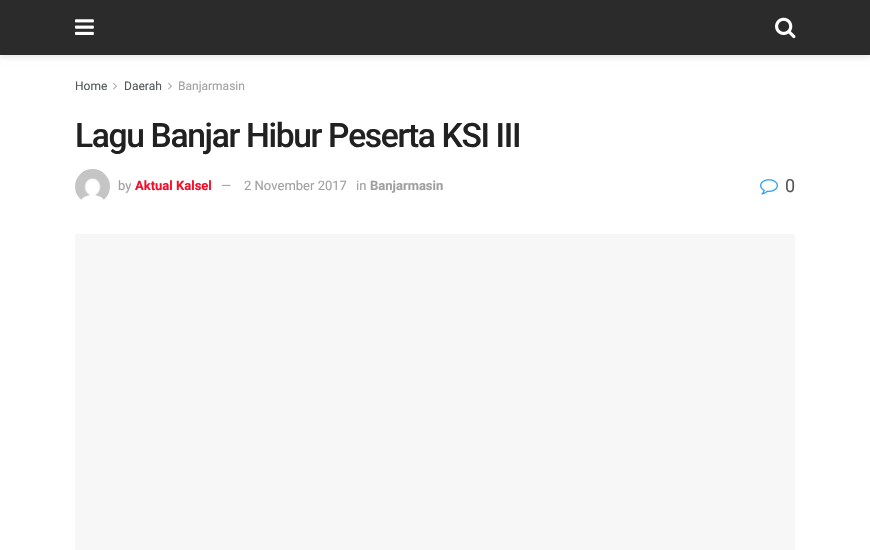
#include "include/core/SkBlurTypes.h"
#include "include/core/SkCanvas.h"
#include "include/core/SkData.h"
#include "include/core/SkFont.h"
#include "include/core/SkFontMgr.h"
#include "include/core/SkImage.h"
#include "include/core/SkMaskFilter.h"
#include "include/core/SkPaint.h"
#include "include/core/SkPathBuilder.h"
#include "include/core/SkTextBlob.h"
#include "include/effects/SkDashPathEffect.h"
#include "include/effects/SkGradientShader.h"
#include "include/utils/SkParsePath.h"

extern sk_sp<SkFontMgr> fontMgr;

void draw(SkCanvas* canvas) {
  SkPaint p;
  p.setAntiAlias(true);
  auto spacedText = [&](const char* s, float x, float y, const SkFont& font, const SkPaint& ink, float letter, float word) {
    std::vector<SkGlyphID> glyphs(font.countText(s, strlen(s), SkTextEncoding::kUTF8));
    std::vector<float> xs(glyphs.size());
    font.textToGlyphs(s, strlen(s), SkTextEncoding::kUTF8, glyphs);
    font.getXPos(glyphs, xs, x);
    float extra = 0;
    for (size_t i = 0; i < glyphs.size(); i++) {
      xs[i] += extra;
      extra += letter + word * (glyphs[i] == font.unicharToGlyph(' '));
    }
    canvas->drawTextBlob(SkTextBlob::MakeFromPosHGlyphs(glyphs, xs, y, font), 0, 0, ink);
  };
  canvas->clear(SK_ColorWHITE);
  p.setColor(SkColorSetARGB(26, 0, 0, 0));
  p.setMaskFilter(SkMaskFilter::MakeBlur(kNormal_SkBlurStyle, 3));
  canvas->drawRect(SkRect::MakeLTRB(0, 2, 870, 57), p);
  p.setMaskFilter(nullptr);
  p.setColor(SkColorSetRGB(43, 43, 43));
  canvas->drawRect(SkRect::MakeLTRB(0, 0, 870, 55), p);
  canvas->drawImageRect(SkImages::DeferredFromEncodedData(SkData::MakeFromFileName("images/1.png")), SkRect::MakeLTRB(75, 19, 94, 35), SkSamplingOptions());
  canvas->drawImageRect(SkImages::DeferredFromEncodedData(SkData::MakeFromFileName("images/2.png")), SkRect::MakeLTRB(775, 17, 796, 39), SkSamplingOptions());
  canvas->drawImageRect(SkImages::DeferredFromEncodedData(SkData::MakeFromFileName("images/3.png")), SkRect::MakeLTRB(113, 82, 117, 90), SkSamplingOptions());
  canvas->drawImageRect(SkImages::DeferredFromEncodedData(SkData::MakeFromFileName("images/3.png")), SkRect::MakeLTRB(168, 82, 172, 90), SkSamplingOptions());
  canvas->drawImageRect(SkImages::DeferredFromEncodedData(SkData::MakeFromFileName("images/4.png")), SkRect::MakeLTRB(75, 169, 110, 200), SkSamplingOptions());
  canvas->drawImageRect(SkImages::DeferredFromEncodedData(SkData::MakeFromFileName("images/5.png")), SkRect::MakeLTRB(760, 179, 778, 195), SkSamplingOptions());
  p.setColor(SkColorSetRGB(247, 247, 247));
  canvas->drawRect(SkRect::MakeLTRB(75, 234, 795, 550), p);
  SkFont font1(fontMgr->matchFamilyStyle("Roboto", SkFontStyle::Normal()), 12);
  font1.setSubpixel(true);
  p.setColor(SkColorSetRGB(83, 88, 92));
  canvas->drawString("Home", 75, 90, font1, p);
  canvas->drawString("Daerah", 124, 90, font1, p);
  p.setColor(SkColorSetRGB(160, 160, 160));
  canvas->drawString("Banjarmasin", 178, 90, font1, p);
  SkFont font2(fontMgr->matchFamilyStyle("Roboto", SkFontStyle(500, SkFontStyle::kNormal_Width, SkFontStyle::kUpright_Slant)), 33.6f);
  font2.setSubpixel(true);
  p.setColor(SkColorSetRGB(33, 33, 33));
  spacedText("Lagu Banjar Hibur Peserta KSI III", 75, 147, font2, p, -1.35f, 0);
  SkFont font3(fontMgr->matchFamilyStyle("Roboto", SkFontStyle::Normal()), 13);
  font3.setSubpixel(true);
  p.setColor(SkColorSetRGB(160, 160, 160));
  canvas->drawString("by", 118, 190, font3, p);
  SkFont font4(fontMgr->matchFamilyStyle("Roboto", SkFontStyle::Bold()), 13);
  font4.setSubpixel(true);
  p.setColor(SkColorSetRGB(247, 13, 40));
  canvas->drawString("Aktual Kalsel", 135, 190, font4, p);
  p.setColor(SkColorSetRGB(160, 160, 160));
  canvas->drawString("—", 221, 190, font3, p);
  canvas->drawString("2 November 2017", 244, 190, font3, p);
  canvas->drawString("in", 356, 190, font3, p);
  canvas->drawString("Banjarmasin", 370, 190, font4, p);
  SkFont font5(fontMgr->matchFamilyStyle("Roboto", SkFontStyle::Normal()), 18);
  font5.setSubpixel(true);
  p.setColor(SkColorSetRGB(83, 88, 92));
  canvas->drawString("0", 785, 192, font5, p);
}
